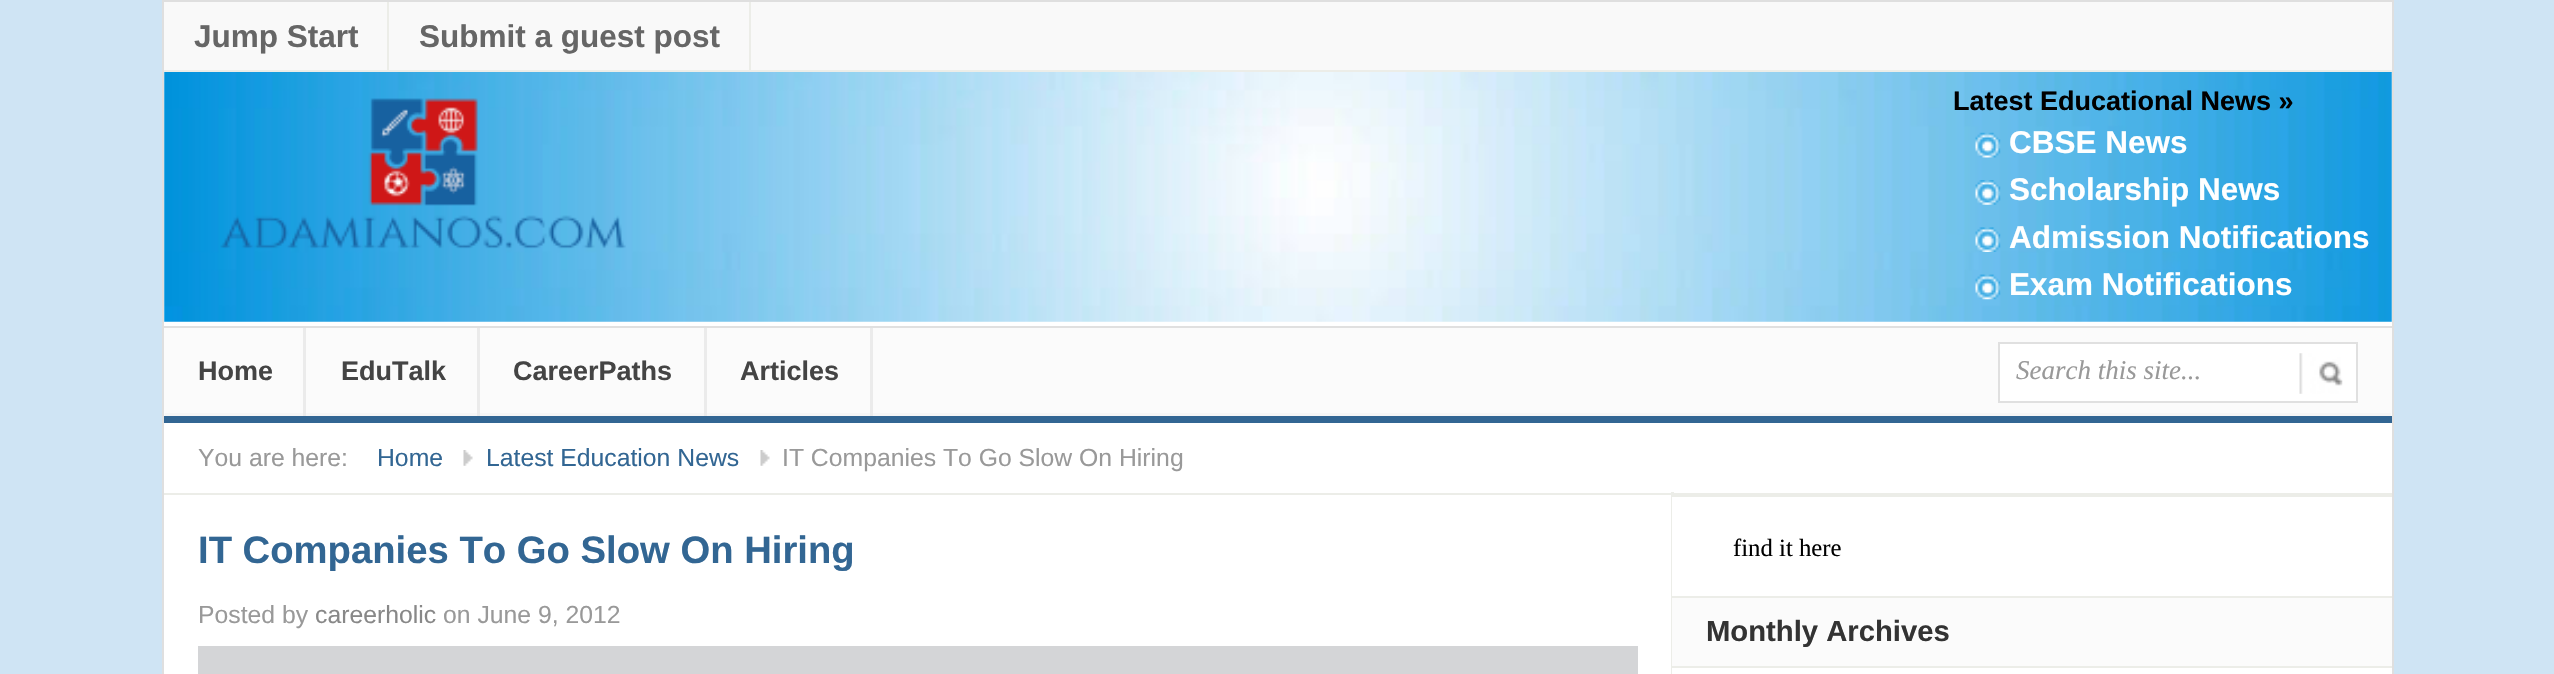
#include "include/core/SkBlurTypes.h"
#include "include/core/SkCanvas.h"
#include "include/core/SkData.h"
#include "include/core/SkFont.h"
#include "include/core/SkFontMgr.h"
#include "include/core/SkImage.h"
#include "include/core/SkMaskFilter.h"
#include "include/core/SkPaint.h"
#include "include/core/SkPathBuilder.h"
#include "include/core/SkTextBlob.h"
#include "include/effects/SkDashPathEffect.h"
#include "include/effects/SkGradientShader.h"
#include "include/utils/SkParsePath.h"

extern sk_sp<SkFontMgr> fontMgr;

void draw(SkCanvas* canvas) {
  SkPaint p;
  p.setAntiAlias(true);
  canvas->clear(SkColorSetRGB(207, 228, 244));
  p.setColor(SK_ColorWHITE);
  canvas->drawRect(SkRect::MakeLTRB(164, 72, 2392, 674), p);
  p.setStyle(SkPaint::kStroke_Style);
  p.setStrokeWidth(2);
  p.setColor(SkColorSetRGB(223, 223, 223));
  canvas->drawRect(SkRect::MakeLTRB(163, 1, 2393, 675), p);
  p.setStyle(SkPaint::kFill_Style);
  p.setColor(SkColorSetRGB(249, 249, 249));
  canvas->drawRect(SkRect::MakeLTRB(164, 2, 2392, 70), p);
  p.setColor(SkColorSetRGB(236, 237, 232));
  canvas->drawRect(SkRect::MakeLTRB(164, 70, 2392, 72), p);
  canvas->drawRect(SkRect::MakeLTRB(387, 2, 389, 70), p);
  canvas->drawRect(SkRect::MakeLTRB(749, 2, 751, 70), p);
  canvas->drawImageRect(SkImages::DeferredFromEncodedData(SkData::MakeFromFileName("images/1.png")), SkRect::MakeLTRB(164, 72, 2392, 322), SkSamplingOptions());
  canvas->drawImageRect(SkImages::DeferredFromEncodedData(SkData::MakeFromFileName("images/2.png")), SkRect::MakeLTRB(220, 98, 626, 249), SkSamplingOptions());
  canvas->drawImageRect(SkImages::DeferredFromEncodedData(SkData::MakeFromFileName("images/3.png")), SkRect::MakeLTRB(1975, 132, 2001, 158), SkSamplingOptions());
  canvas->drawImageRect(SkImages::DeferredFromEncodedData(SkData::MakeFromFileName("images/4.png")), SkRect::MakeLTRB(1975, 180, 2001, 205), SkSamplingOptions());
  canvas->drawImageRect(SkImages::DeferredFromEncodedData(SkData::MakeFromFileName("images/5.png")), SkRect::MakeLTRB(1975, 227, 2001, 252), SkSamplingOptions());
  canvas->drawImageRect(SkImages::DeferredFromEncodedData(SkData::MakeFromFileName("images/6.png")), SkRect::MakeLTRB(1975, 274, 2001, 300), SkSamplingOptions());
  p.setColor(SkColorSetRGB(251, 251, 251));
  canvas->drawRect(SkRect::MakeLTRB(164, 328, 2392, 416), p);
  p.setColor(SkColorSetRGB(246, 246, 246));
  canvas->drawRect(SkRect::MakeLTRB(165, 413, 2391, 416), p);
  p.setColor(SkColorSetRGB(224, 224, 224));
  canvas->drawRect(SkRect::MakeLTRB(164, 326, 2392, 328), p);
  p.setColor(SkColorSetRGB(50, 102, 147));
  canvas->drawRect(SkRect::MakeLTRB(873, 416, 2392, 423), p);
  p.setColor(SkColorSetRGB(235, 235, 235));
  canvas->drawRect(SkRect::MakeLTRB(303, 328, 306, 417), p);
  p.setColor(SkColorSetRGB(50, 102, 147));
  canvas->drawRect(SkRect::MakeLTRB(164, 416, 306, 423), p);
  p.setColor(SkColorSetRGB(235, 235, 235));
  canvas->drawRect(SkRect::MakeLTRB(477, 328, 480, 417), p);
  p.setColor(SkColorSetRGB(50, 102, 147));
  canvas->drawRect(SkRect::MakeLTRB(306, 416, 479, 423), p);
  p.setColor(SkColorSetRGB(235, 235, 235));
  canvas->drawRect(SkRect::MakeLTRB(704, 328, 707, 417), p);
  p.setColor(SkColorSetRGB(50, 102, 147));
  canvas->drawRect(SkRect::MakeLTRB(479, 416, 707, 423), p);
  p.setColor(SkColorSetRGB(235, 235, 235));
  canvas->drawRect(SkRect::MakeLTRB(870, 328, 873, 417), p);
  p.setColor(SkColorSetRGB(50, 102, 147));
  canvas->drawRect(SkRect::MakeLTRB(707, 416, 873, 423), p);
  p.setColor(SK_ColorWHITE);
  canvas->drawRect(SkRect::MakeLTRB(1999, 343, 2357, 402), p);
  p.setStyle(SkPaint::kStroke_Style);
  p.setColor(SkColorSetRGB(224, 224, 224));
  canvas->drawRect(SkRect::MakeLTRB(1999, 343, 2357, 402), p);
  canvas->drawImageRect(SkImages::DeferredFromEncodedData(SkData::MakeFromFileName("images/7.png")), SkRect::MakeLTRB(2299, 353, 2343, 394), SkSamplingOptions());
  canvas->drawImageRect(SkImages::DeferredFromEncodedData(SkData::MakeFromFileName("images/8.png")), SkRect::MakeLTRB(463, 450, 473, 466), SkSamplingOptions());
  canvas->drawImageRect(SkImages::DeferredFromEncodedData(SkData::MakeFromFileName("images/8.png")), SkRect::MakeLTRB(760, 450, 770, 466), SkSamplingOptions());
  p.setStyle(SkPaint::kFill_Style);
  p.setColor(SkColorSetRGB(236, 237, 232));
  canvas->drawRect(SkRect::MakeLTRB(1671, 492, 1674, 674), p);
  canvas->drawRect(SkRect::MakeLTRB(164, 493, 2392, 495), p);
  p.setColor(SkColorSetRGB(212, 213, 215));
  canvas->drawRect(SkRect::MakeLTRB(198, 646, 1638, 674), p);
  p.setColor(SK_ColorWHITE);
  canvas->drawRect(SkRect::MakeLTRB(1672, 497, 1674, 596), p);
  p.setColor(SkColorSetRGB(236, 237, 232));
  canvas->drawRect(SkRect::MakeLTRB(1672, 495, 2392, 497), p);
  p.setColor(SK_ColorWHITE);
  canvas->drawRect(SkRect::MakeLTRB(1672, 668, 1674, 674), p);
  p.setColor(SkColorSetRGB(251, 251, 251));
  canvas->drawRect(SkRect::MakeLTRB(1672, 598, 2392, 666), p);
  p.setColor(SkColorSetRGB(236, 237, 232));
  canvas->drawRect(SkRect::MakeLTRB(1672, 596, 2392, 598), p);
  canvas->drawRect(SkRect::MakeLTRB(1672, 666, 2392, 668), p);
  SkFont font1(fontMgr->matchFamilyStyle("Liberation Sans", SkFontStyle::Bold()), 31.5f);
  font1.setSubpixel(true);
  p.setColor(SkColorSetRGB(102, 102, 102));
  canvas->drawString("Jump Start", 194, 47, font1, p);
  canvas->drawString("Submit a guest post", 419, 47, font1, p);
  SkFont font2(fontMgr->matchFamilyStyle("Liberation Sans", SkFontStyle::Bold()), 27);
  font2.setSubpixel(true);
  p.setColor(SK_ColorBLACK);
  canvas->drawString("Latest Educational News »", 1953, 110, font2, p);
  p.setColor(SK_ColorWHITE);
  canvas->drawString("CBSE News", 2009, 153, font1, p);
  canvas->drawString("Scholarship News", 2009, 200, font1, p);
  canvas->drawString("Admission Notifications", 2009, 248, font1, p);
  canvas->drawString("Exam Notifications", 2009, 295, font1, p);
  p.setColor(SkColorSetRGB(68, 68, 68));
  canvas->drawString("Home", 198, 380, font2, p);
  canvas->drawString("EduTalk", 341, 380, font2, p);
  canvas->drawString("CareerPaths", 513, 380, font2, p);
  canvas->drawString("Articles", 740, 380, font2, p);
  SkFont font3(fontMgr->matchFamilyStyle("Liberation Serif", SkFontStyle::Italic()), 27);
  font3.setSubpixel(true);
  p.setColor(SkColorSetRGB(153, 153, 153));
  canvas->drawString("Search this site...", 2016, 379, font3, p);
  SkFont font4(fontMgr->matchFamilyStyle("Liberation Sans", SkFontStyle::Normal()), 24.75f);
  font4.setSubpixel(true);
  canvas->drawString("You are here:", 198, 466, font4, p);
  p.setColor(SkColorSetRGB(50, 102, 147));
  canvas->drawString("Home", 377, 466, font4, p);
  canvas->drawString("Latest Education News", 486, 466, font4, p);
  p.setColor(SkColorSetRGB(153, 153, 153));
  canvas->drawString("IT Companies To Go Slow On Hiring", 782, 466, font4, p);
  SkFont font5(fontMgr->matchFamilyStyle("Liberation Sans", SkFontStyle::Bold()), 38.25f);
  font5.setSubpixel(true);
  p.setColor(SkColorSetRGB(50, 102, 147));
  canvas->drawString("IT Companies To Go Slow On Hiring", 198, 563, font5, p);
  p.setColor(SkColorSetRGB(153, 153, 153));
  canvas->drawString("Posted by", 198, 623, font4, p);
  p.setColor(SkColorSetRGB(136, 136, 136));
  canvas->drawString("careerholic", 315, 623, font4, p);
  p.setColor(SkColorSetRGB(153, 153, 153));
  canvas->drawString("on June 9, 2012", 443, 623, font4, p);
  SkFont font6(fontMgr->matchFamilyStyle("Liberation Serif", SkFontStyle::Normal()), 24.75f);
  font6.setSubpixel(true);
  p.setColor(SK_ColorBLACK);
  canvas->drawString("find it here", 1733, 556, font6, p);
  SkFont font7(fontMgr->matchFamilyStyle("Liberation Sans", SkFontStyle::Bold()), 29.25f);
  font7.setSubpixel(true);
  p.setColor(SkColorSetRGB(51, 51, 51));
  canvas->drawString("Monthly Archives", 1706, 641, font7, p);
}
